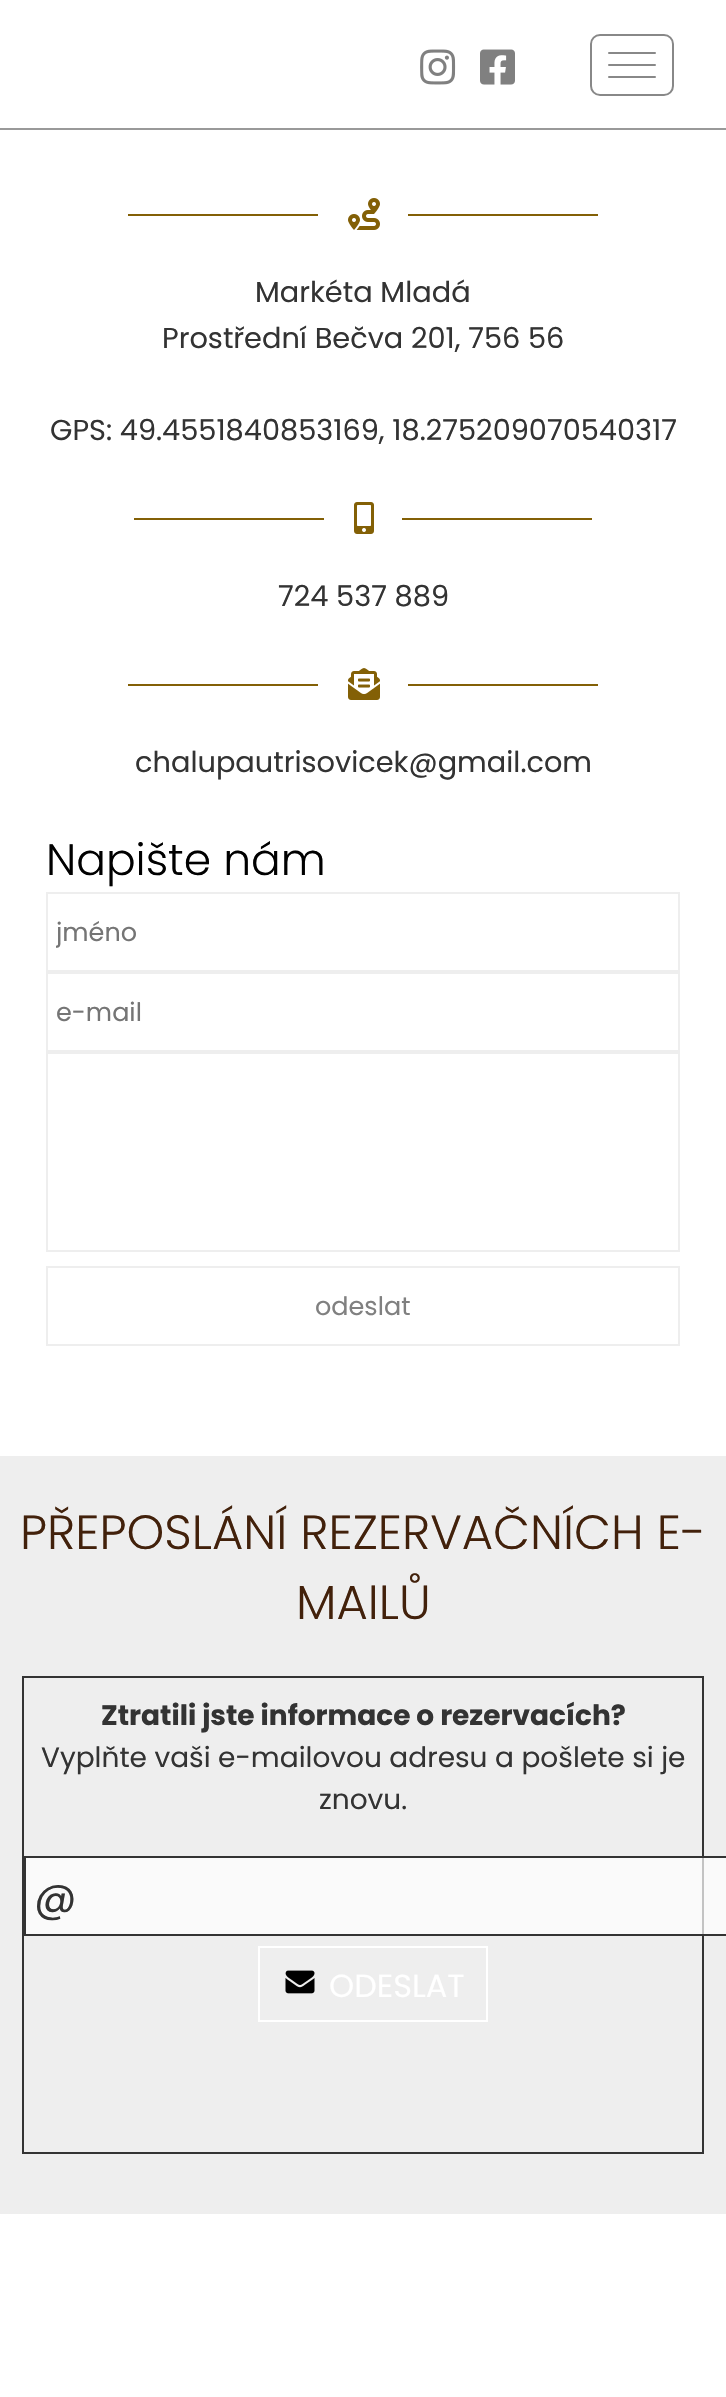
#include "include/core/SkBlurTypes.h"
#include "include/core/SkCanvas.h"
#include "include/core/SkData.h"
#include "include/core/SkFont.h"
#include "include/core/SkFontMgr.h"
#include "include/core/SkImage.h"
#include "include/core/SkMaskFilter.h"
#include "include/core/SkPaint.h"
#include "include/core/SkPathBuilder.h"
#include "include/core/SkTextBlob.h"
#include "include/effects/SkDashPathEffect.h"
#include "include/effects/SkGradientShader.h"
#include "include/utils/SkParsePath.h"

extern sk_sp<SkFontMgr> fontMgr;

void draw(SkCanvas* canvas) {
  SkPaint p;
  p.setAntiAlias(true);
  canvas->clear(SK_ColorWHITE);
  p.setColor(SkColorSetRGB(153, 153, 153));
  canvas->drawRect(SkRect::MakeLTRB(0, 128, 726, 130), p);
  canvas->drawImageRect(SkImages::DeferredFromEncodedData(SkData::MakeFromFileName("images/1.png")), SkRect::MakeLTRB(420, 49, 456, 85), SkSamplingOptions());
  canvas->drawImageRect(SkImages::DeferredFromEncodedData(SkData::MakeFromFileName("images/2.png")), SkRect::MakeLTRB(480, 49, 515, 85), SkSamplingOptions());
  p.setStyle(SkPaint::kStroke_Style);
  p.setStrokeWidth(2);
  p.setColor(SkColorSetRGB(136, 136, 136));
  canvas->drawRoundRect(SkRect::MakeLTRB(591, 35, 673, 95), 9, 9, p);
  p.setStyle(SkPaint::kFill_Style);
  canvas->drawRoundRect(SkRect::MakeLTRB(608, 52, 656, 54), 1, 1, p);
  canvas->drawRoundRect(SkRect::MakeLTRB(608, 64, 656, 66), 1, 1, p);
  canvas->drawRoundRect(SkRect::MakeLTRB(608, 76, 656, 78), 1, 1, p);
  p.setColor(SkColorSetRGB(131, 96, 6));
  canvas->drawRect(SkRect::MakeLTRB(128, 214, 318, 216), p);
  canvas->drawImageRect(SkImages::DeferredFromEncodedData(SkData::MakeFromFileName("images/3.png")), SkRect::MakeLTRB(348, 198, 380, 230), SkSamplingOptions());
  canvas->drawRect(SkRect::MakeLTRB(408, 214, 598, 216), p);
  canvas->drawRect(SkRect::MakeLTRB(134, 518, 324, 520), p);
  canvas->drawImageRect(SkImages::DeferredFromEncodedData(SkData::MakeFromFileName("images/4.png")), SkRect::MakeLTRB(354, 502, 374, 534), SkSamplingOptions());
  canvas->drawRect(SkRect::MakeLTRB(402, 518, 592, 520), p);
  canvas->drawRect(SkRect::MakeLTRB(128, 684, 318, 686), p);
  canvas->drawImageRect(SkImages::DeferredFromEncodedData(SkData::MakeFromFileName("images/5.png")), SkRect::MakeLTRB(348, 668, 380, 700), SkSamplingOptions());
  canvas->drawRect(SkRect::MakeLTRB(408, 684, 598, 686), p);
  p.setStyle(SkPaint::kStroke_Style);
  p.setColor(SkColorSetRGB(238, 238, 238));
  canvas->drawRect(SkRect::MakeLTRB(47, 893, 679, 971), p);
  canvas->drawRect(SkRect::MakeLTRB(47, 973, 679, 1051), p);
  canvas->drawRect(SkRect::MakeLTRB(47, 1053, 679, 1251), p);
  canvas->drawRect(SkRect::MakeLTRB(47, 1267, 679, 1345), p);
  p.setStyle(SkPaint::kFill_Style);
  canvas->drawRect(SkRect::MakeLTRB(0, 1456, 726, 2214), p);
  p.setStyle(SkPaint::kStroke_Style);
  p.setColor(SkColorSetRGB(51, 51, 51));
  canvas->drawRect(SkRect::MakeLTRB(23, 1677, 703, 2153), p);
  p.setStyle(SkPaint::kFill_Style);
  p.setColor(SkColorSetARGB(179, 255, 255, 255));
  canvas->drawRect(SkRect::MakeLTRB(25, 1857, 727, 1935), p);
  p.setStyle(SkPaint::kStroke_Style);
  p.setColor(SkColorSetRGB(51, 51, 51));
  canvas->drawRect(SkRect::MakeLTRB(25, 1857, 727, 1935), p);
  p.setColor(SK_ColorWHITE);
  canvas->drawRect(SkRect::MakeLTRB(259, 1947, 487, 2021), p);
  canvas->drawImageRect(SkImages::DeferredFromEncodedData(SkData::MakeFromFileName("images/6.png")), SkRect::MakeLTRB(285, 1970, 315, 1994), SkSamplingOptions());
  SkFont font1(fontMgr->matchFamilyStyle("Poppins", SkFontStyle::Normal()), 28.8f);
  font1.setSubpixel(true);
  p.setStyle(SkPaint::kFill_Style);
  p.setColor(SkColorSetRGB(51, 51, 51));
  canvas->drawString("Markéta Mladá", 255, 302, font1, p);
  canvas->drawString("Prostřední Bečva 201, 756 56", 162, 348, font1, p);
  canvas->drawString("GPS: 49.4551840853169, 18.275209070540317", 50, 440, font1, p);
  canvas->drawString("724 537 889", 278, 606, font1, p);
  canvas->drawString("chalupautrisovicek@gmail.com", 135, 772, font1, p);
  SkFont font2(fontMgr->matchFamilyStyle("Poppins", SkFontStyle(300, SkFontStyle::kNormal_Width, SkFontStyle::kUpright_Slant)), 44);
  font2.setSubpixel(true);
  p.setColor(SK_ColorBLACK);
  canvas->drawString("Napište nám", 46, 875, font2, p);
  canvas->save();
  canvas->clipRect(SkRect::MakeLTRB(56, 914, 670, 950));
  SkFont font3(fontMgr->matchFamilyStyle("Poppins", SkFontStyle::Normal()), 25.5f);
  font3.setSubpixel(true);
  p.setColor(SkColorSetRGB(117, 117, 117));
  canvas->drawString("jméno", 56, 941, font3, p);
  canvas->restore();
  canvas->drawString("e-mail", 56, 1021, font3, p);
  p.setColor(SkColorSetRGB(128, 128, 128));
  canvas->drawString("odeslat", 315, 1315, font3, p);
  SkFont font4(fontMgr->matchFamilyStyle("Poppins", SkFontStyle(300, SkFontStyle::kNormal_Width, SkFontStyle::kUpright_Slant)), 48);
  font4.setSubpixel(true);
  p.setColor(SkColorSetRGB(66, 33, 11));
  canvas->drawString("PŘEPOSLÁNÍ REZERVAČNÍCH E-", 20, 1549, font4, p);
  canvas->drawString("MAILŮ", 296, 1619, font4, p);
  SkFont font5(fontMgr->matchFamilyStyle("Poppins", SkFontStyle::Bold()), 28);
  font5.setSubpixel(true);
  p.setColor(SkColorSetRGB(51, 51, 51));
  canvas->drawString("Ztratili jste informace o rezervacích?", 101, 1725, font5, p);
  SkFont font6(fontMgr->matchFamilyStyle("Poppins", SkFontStyle::Normal()), 28);
  font6.setSubpixel(true);
  canvas->drawString("Vyplňte vaši e-mailovou adresu a pošlete si je", 41, 1767, font6, p);
  canvas->drawString("znovu.", 319, 1809, font6, p);
  SkFont font7(fontMgr->matchFamilyStyle("Poppins", SkFontStyle::Normal()), 42);
  font7.setSubpixel(true);
  canvas->drawString("@", 34, 1912, font7, p);
  SkFont font8(fontMgr->matchFamilyStyle("Poppins", SkFontStyle::Normal()), 32);
  font8.setSubpixel(true);
  p.setColor(SK_ColorWHITE);
  canvas->drawString("ODESLAT", 329, 1997, font8, p);
}
